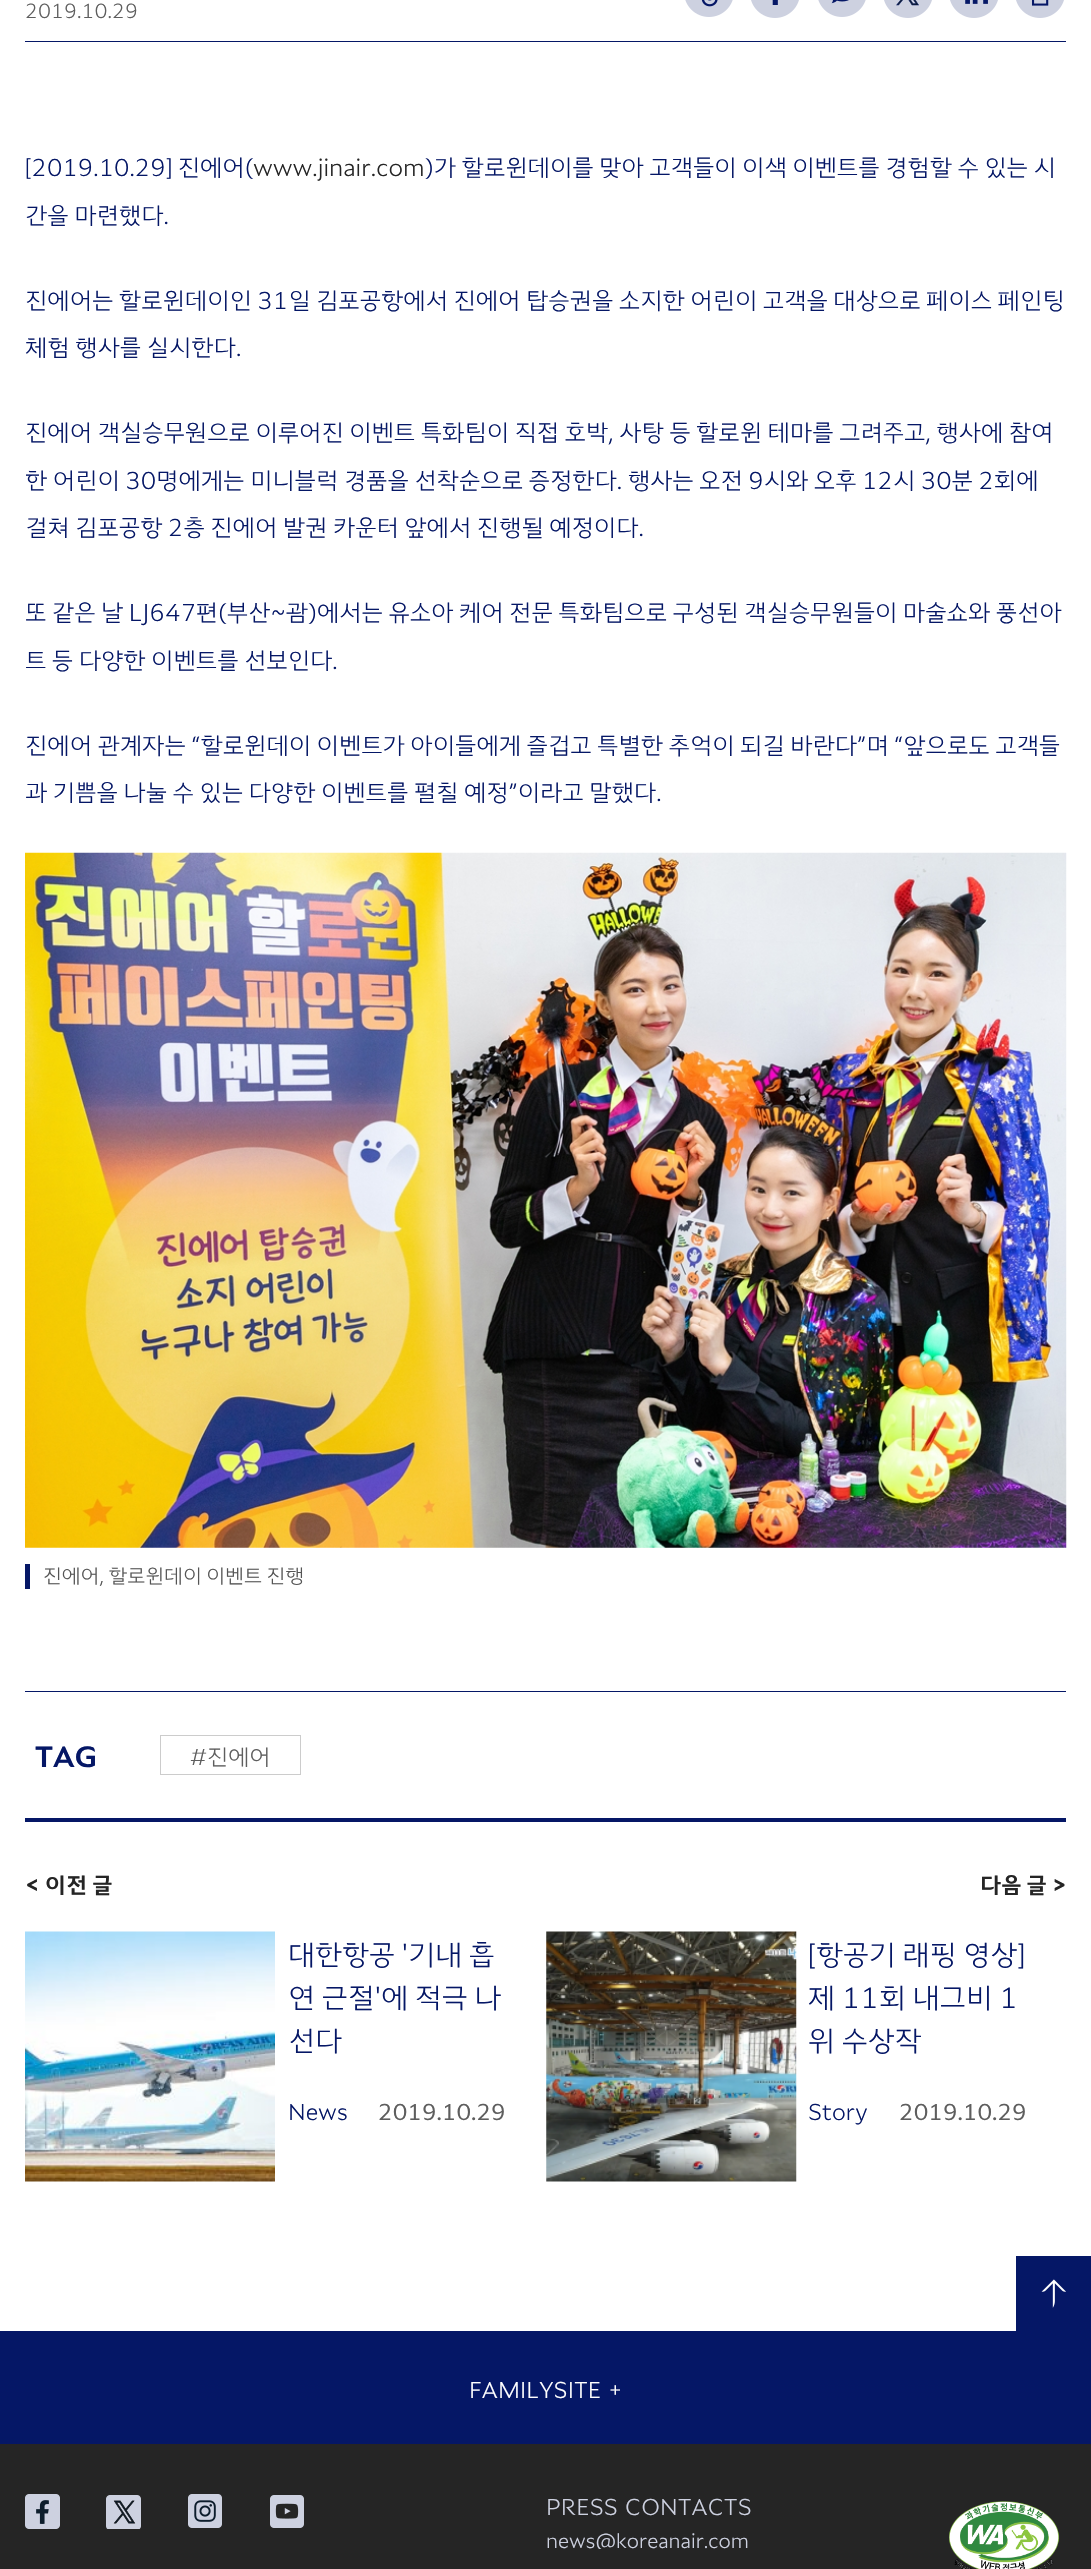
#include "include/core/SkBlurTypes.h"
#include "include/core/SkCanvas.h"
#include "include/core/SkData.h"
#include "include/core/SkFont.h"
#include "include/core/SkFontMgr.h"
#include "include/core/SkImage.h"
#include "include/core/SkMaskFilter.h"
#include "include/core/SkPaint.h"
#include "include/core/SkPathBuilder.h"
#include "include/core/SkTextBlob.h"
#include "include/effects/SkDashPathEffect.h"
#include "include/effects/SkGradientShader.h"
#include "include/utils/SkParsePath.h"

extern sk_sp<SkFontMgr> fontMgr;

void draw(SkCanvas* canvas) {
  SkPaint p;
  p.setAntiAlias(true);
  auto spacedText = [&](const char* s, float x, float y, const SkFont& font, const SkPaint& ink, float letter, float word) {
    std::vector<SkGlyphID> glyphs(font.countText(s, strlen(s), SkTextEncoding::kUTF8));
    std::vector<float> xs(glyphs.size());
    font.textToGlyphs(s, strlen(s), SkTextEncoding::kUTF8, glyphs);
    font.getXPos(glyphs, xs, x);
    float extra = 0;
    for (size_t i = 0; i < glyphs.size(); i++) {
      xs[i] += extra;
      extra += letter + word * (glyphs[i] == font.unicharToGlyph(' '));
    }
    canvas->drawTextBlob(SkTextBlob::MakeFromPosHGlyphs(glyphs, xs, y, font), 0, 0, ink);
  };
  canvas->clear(SK_ColorWHITE);
  p.setColor(SkColorSetRGB(5, 23, 102));
  canvas->drawRect(SkRect::MakeLTRB(25, 41, 1066, 42), p);
  canvas->drawImageRect(SkImages::DeferredFromEncodedData(SkData::MakeFromFileName("images/1.png")), SkRect::MakeLTRB(685, 0, 733, 17), SkSamplingOptions());
  canvas->drawImageRect(SkImages::DeferredFromEncodedData(SkData::MakeFromFileName("images/2.png")), SkRect::MakeLTRB(751, 0, 799, 18), SkSamplingOptions());
  canvas->drawImageRect(SkImages::DeferredFromEncodedData(SkData::MakeFromFileName("images/3.png")), SkRect::MakeLTRB(818, 0, 866, 17), SkSamplingOptions());
  canvas->drawImageRect(SkImages::DeferredFromEncodedData(SkData::MakeFromFileName("images/4.png")), SkRect::MakeLTRB(884, 0, 932, 18), SkSamplingOptions());
  canvas->drawImageRect(SkImages::DeferredFromEncodedData(SkData::MakeFromFileName("images/5.png")), SkRect::MakeLTRB(950, 0, 998, 18), SkSamplingOptions());
  canvas->drawImageRect(SkImages::DeferredFromEncodedData(SkData::MakeFromFileName("images/6.png")), SkRect::MakeLTRB(1016, 0, 1064, 18), SkSamplingOptions());
  canvas->drawImageRect(SkImages::DeferredFromEncodedData(SkData::MakeFromFileName("images/7.png")), SkRect::MakeLTRB(25, 852, 1067, 1548), SkSamplingOptions());
  canvas->drawRect(SkRect::MakeLTRB(25, 1564, 30, 1589), p);
  canvas->drawRect(SkRect::MakeLTRB(25, 1691, 1066, 1692), p);
  p.setStyle(SkPaint::kStroke_Style);
  p.setStrokeWidth(1);
  p.setColor(SkColorSetRGB(204, 204, 204));
  canvas->drawRect(SkRect::MakeLTRB(160.5f, 1735.5f, 300.5f, 1774.5f), p);
  p.setStyle(SkPaint::kFill_Style);
  p.setColor(SkColorSetRGB(5, 23, 102));
  canvas->drawRect(SkRect::MakeLTRB(25, 1818, 1066, 1822), p);
  canvas->drawImageRect(SkImages::DeferredFromEncodedData(SkData::MakeFromFileName("images/8.png")), SkRect::MakeLTRB(25, 1931, 275, 2182), SkSamplingOptions());
  canvas->drawImageRect(SkImages::DeferredFromEncodedData(SkData::MakeFromFileName("images/9.png")), SkRect::MakeLTRB(546, 1931, 797, 2182), SkSamplingOptions());
  canvas->drawRect(SkRect::MakeLTRB(1016, 2256, 1091, 2331), p);
  canvas->drawImageRect(SkImages::DeferredFromEncodedData(SkData::MakeFromFileName("images/10.png")), SkRect::MakeLTRB(1041, 2279, 1066, 2308), SkSamplingOptions());
  canvas->drawRect(SkRect::MakeLTRB(0, 2331, 1091, 2444), p);
  p.setColor(SkColorSetRGB(37, 37, 37));
  canvas->drawRect(SkRect::MakeLTRB(0, 2444, 1091, 2569), p);
  canvas->drawImageRect(SkImages::DeferredFromEncodedData(SkData::MakeFromFileName("images/11.png")), SkRect::MakeLTRB(25, 2494, 60, 2529), SkSamplingOptions());
  canvas->drawImageRect(SkImages::DeferredFromEncodedData(SkData::MakeFromFileName("images/12.png")), SkRect::MakeLTRB(106, 2495, 141, 2529), SkSamplingOptions());
  canvas->drawImageRect(SkImages::DeferredFromEncodedData(SkData::MakeFromFileName("images/13.png")), SkRect::MakeLTRB(188, 2494, 222, 2528), SkSamplingOptions());
  canvas->drawImageRect(SkImages::DeferredFromEncodedData(SkData::MakeFromFileName("images/14.png")), SkRect::MakeLTRB(270, 2495, 304, 2528), SkSamplingOptions());
  canvas->drawImageRect(SkImages::DeferredFromEncodedData(SkData::MakeFromFileName("images/15.png")), SkRect::MakeLTRB(949, 2501, 1060, 2569), SkSamplingOptions());
  SkFont font1(fontMgr->matchFamilyStyle("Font", SkFontStyle(300, SkFontStyle::kNormal_Width, SkFontStyle::kUpright_Slant)), 20);
  font1.setSubpixel(true);
  p.setColor(SkColorSetRGB(94, 94, 94));
  canvas->drawString("2019.10.29", 25, 18, font1, p);
  SkFont font2(fontMgr->matchFamilyStyle("Font", SkFontStyle(300, SkFontStyle::kNormal_Width, SkFontStyle::kUpright_Slant)), 23.75f);
  font2.setSubpixel(true);
  p.setColor(SkColorSetRGB(5, 23, 102));
  canvas->drawString("[2019.10.29] 진에어(", 25, 176, font2, p);
  p.setColor(SkColorSetRGB(37, 37, 37));
  canvas->drawString("www.jinair.com", 253, 176, font2, p);
  p.setColor(SkColorSetRGB(5, 23, 102));
  canvas->drawString(")가 할로윈데이를 맞아 고객들이 이색 이벤트를 경험할 수 있는 시", 425, 176, font2, p);
  canvas->drawString("간을 마련했다.", 25, 224, font2, p);
  canvas->drawString("진에어는 할로윈데이인 31일 김포공항에서 진에어 탑승권을 소지한 어린이 고객을 대상으로 페이스 페인팅", 25, 309, font2, p);
  canvas->drawString("체험 행사를 실시한다.", 25, 356, font2, p);
  canvas->drawString("진에어 객실승무원으로 이루어진 이벤트 특화팀이 직접 호박, 사탕 등 할로윈 테마를 그려주고, 행사에 참여", 25, 441, font2, p);
  canvas->drawString("한 어린이 30명에게는 미니블럭 경품을 선착순으로 증정한다. 행사는 오전 9시와 오후 12시 30분 2회에", 25, 489, font2, p);
  canvas->drawString("걸쳐 김포공항 2층 진에어 발권 카운터 앞에서 진행될 예정이다.", 25, 536, font2, p);
  canvas->drawString("또 같은 날 LJ647편(부산~괌)에서는 유소아 케어 전문 특화팀으로 구성된 객실승무원들이 마술쇼와 풍선아", 25, 621, font2, p);
  canvas->drawString("트 등 다양한 이벤트를 선보인다.", 25, 669, font2, p);
  canvas->drawString("진에어 관계자는 “할로윈데이 이벤트가 아이들에게 즐겁고 특별한 추억이 되길 바란다”며 “앞으로도 고객들", 25, 754, font2, p);
  canvas->drawString("과 기쁨을 나눌 수 있는 다양한 이벤트를 펼칠 예정”이라고 말했다.", 25, 801, font2, p);
  p.setColor(SkColorSetRGB(85, 85, 85));
  canvas->drawString("진에어, 할로윈데이 이벤트 진행", 43, 1583, font1, p);
  SkFont font3(fontMgr->matchFamilyStyle("Font", SkFontStyle::Bold()), 28.75f);
  font3.setSubpixel(true);
  p.setColor(SkColorSetRGB(5, 23, 102));
  canvas->drawString("TAG", 35, 1767, font3, p);
  SkFont font4(fontMgr->matchFamilyStyle("Font", SkFontStyle(300, SkFontStyle::kNormal_Width, SkFontStyle::kUpright_Slant)), 22.5f);
  font4.setSubpixel(true);
  p.setColor(SkColorSetRGB(94, 94, 94));
  canvas->drawString("#진에어", 190, 1765, font4, p);
  SkFont font5(fontMgr->matchFamilyStyle("Font", SkFontStyle::Bold()), 22.5f);
  font5.setSubpixel(true);
  p.setColor(SkColorSetRGB(37, 37, 37));
  canvas->drawString("< 이전 글", 25, 1893, font5, p);
  SkFont font6(fontMgr->matchFamilyStyle("Font", SkFontStyle(300, SkFontStyle::kNormal_Width, SkFontStyle::kUpright_Slant)), 28.75f);
  font6.setSubpixel(true);
  p.setColor(SkColorSetRGB(5, 23, 102));
  canvas->drawString("대한항공 '기내 흡", 288, 1965, font6, p);
  canvas->drawString("연 근절'에 적극 나", 288, 2008, font6, p);
  canvas->drawString("선다", 288, 2051, font6, p);
  canvas->drawString("News", 288, 2120, font4, p);
  SkFont font7(fontMgr->matchFamilyStyle("Font", SkFontStyle::Normal()), 22.5f);
  font7.setSubpixel(true);
  p.setColor(SkColorSetRGB(94, 94, 94));
  canvas->drawString("2019.10.29", 378, 2120, font7, p);
  p.setColor(SkColorSetRGB(37, 37, 37));
  canvas->drawString("다음 글 >", 980, 1893, font5, p);
  p.setColor(SkColorSetRGB(5, 23, 102));
  canvas->drawString("[항공기 래핑 영상]", 808, 1965, font6, p);
  canvas->drawString("제 11회 내그비 1", 808, 2008, font6, p);
  canvas->drawString("위 수상작", 808, 2051, font6, p);
  canvas->drawString("Story", 808, 2120, font4, p);
  p.setColor(SkColorSetRGB(94, 94, 94));
  canvas->drawString("2019.10.29", 899, 2120, font7, p);
  p.setColor(SK_ColorWHITE);
  canvas->drawString("FAMILYSITE", 469, 2398, font4, p);
  canvas->drawString("+", 608, 2398, font4, p);
  p.setColor(SkColorSetRGB(205, 209, 224));
  spacedText("PRESS CONTACTS", 546, 2515, font4, p, 0, 2);
  canvas->save();
  canvas->clipRect(SkRect::MakeLTRB(546, 2529, 753, 2549));
  canvas->drawString("news@koreanair.com", 546, 2548, font1, p);
  canvas->restore();
}
